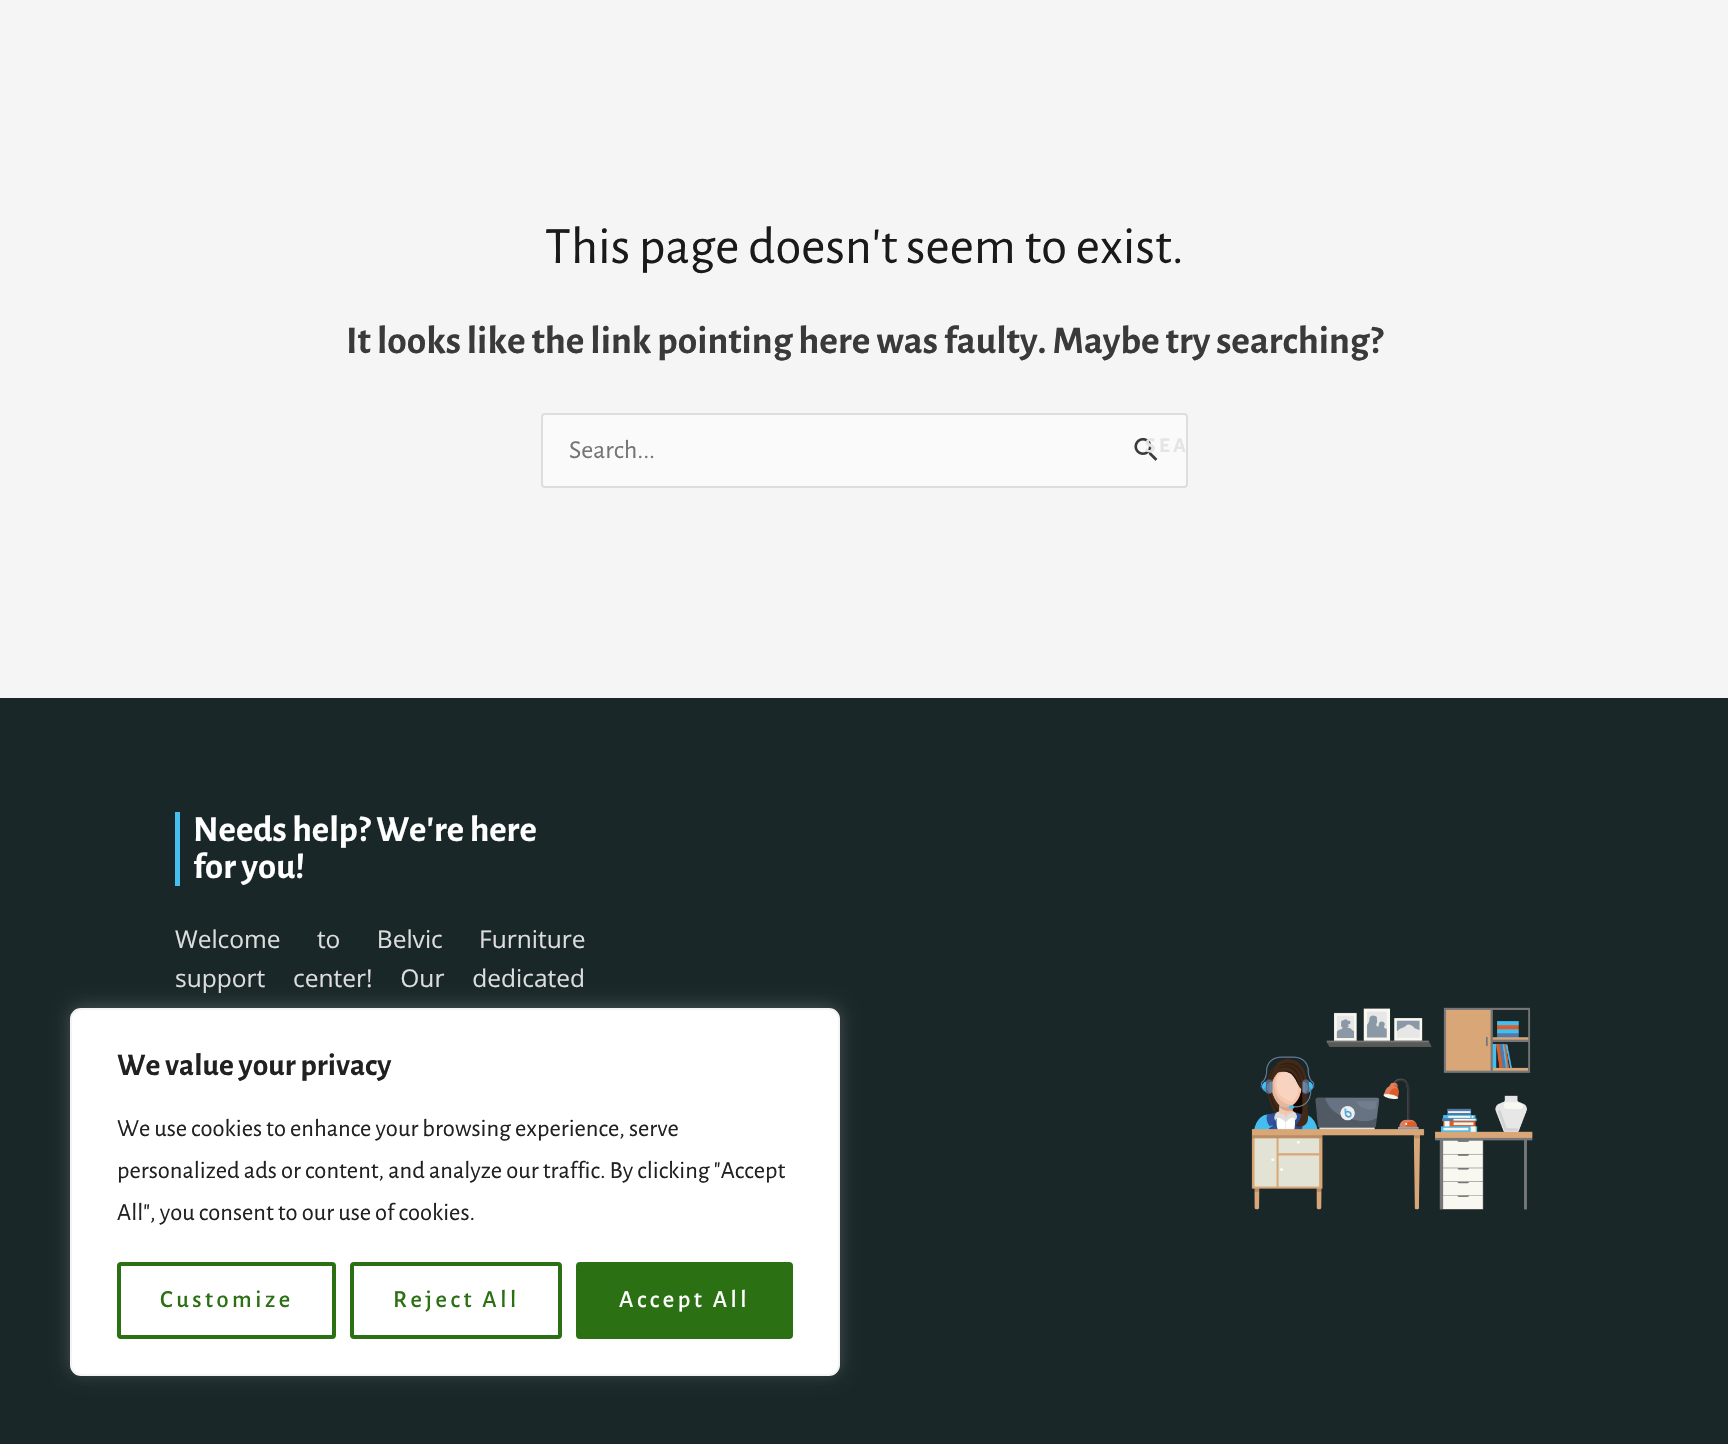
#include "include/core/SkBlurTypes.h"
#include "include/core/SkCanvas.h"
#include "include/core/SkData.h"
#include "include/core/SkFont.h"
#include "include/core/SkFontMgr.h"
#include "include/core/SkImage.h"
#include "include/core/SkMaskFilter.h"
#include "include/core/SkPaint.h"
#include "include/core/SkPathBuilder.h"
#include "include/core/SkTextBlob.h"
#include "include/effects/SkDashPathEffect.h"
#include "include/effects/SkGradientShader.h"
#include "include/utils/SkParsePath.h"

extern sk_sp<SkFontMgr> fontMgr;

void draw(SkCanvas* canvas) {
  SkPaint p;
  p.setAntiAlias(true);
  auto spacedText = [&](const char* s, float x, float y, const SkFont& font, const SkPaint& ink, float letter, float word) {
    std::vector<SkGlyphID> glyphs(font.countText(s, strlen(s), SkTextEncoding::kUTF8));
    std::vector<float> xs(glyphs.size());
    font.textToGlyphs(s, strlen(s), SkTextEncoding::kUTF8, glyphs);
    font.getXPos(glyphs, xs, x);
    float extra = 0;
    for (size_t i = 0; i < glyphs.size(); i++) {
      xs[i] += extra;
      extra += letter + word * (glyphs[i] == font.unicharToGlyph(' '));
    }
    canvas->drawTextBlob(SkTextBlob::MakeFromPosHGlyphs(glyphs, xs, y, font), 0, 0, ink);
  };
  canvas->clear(SkColorSetRGB(245, 245, 245));
  p.setColor(SkColorSetRGB(250, 250, 250));
  canvas->drawRoundRect(SkRect::MakeLTRB(542, 414, 1187, 487), 3, 3, p);
  p.setStyle(SkPaint::kStroke_Style);
  p.setStrokeWidth(2);
  p.setColor(SkColorSetRGB(221, 221, 221));
  canvas->drawRoundRect(SkRect::MakeLTRB(542, 414, 1187, 487), 3, 3, p);
  canvas->drawImageRect(SkImages::DeferredFromEncodedData(SkData::MakeFromFileName("images/1.png")), SkRect::MakeLTRB(1134, 437, 1158, 461), SkSamplingOptions());
  p.setStyle(SkPaint::kFill_Style);
  p.setColor(SkColorSetRGB(25, 39, 41));
  canvas->drawRect(SkRect::MakeLTRB(0, 698, 1728, 1444), p);
  p.setColor(SkColorSetRGB(70, 191, 239));
  canvas->drawRect(SkRect::MakeLTRB(175, 812, 180, 886), p);
  canvas->drawImageRect(SkImages::DeferredFromEncodedData(SkData::MakeFromFileName("images/2.png")), SkRect::MakeLTRB(1251, 1007, 1533, 1210), SkSamplingOptions());
  p.setColor(SkColorSetARGB(77, 172, 171, 171));
  p.setMaskFilter(SkMaskFilter::MakeBlur(kNormal_SkBlurStyle, 9));
  canvas->drawRoundRect(SkRect::MakeLTRB(70, 1006, 840, 1374), 11, 11, p);
  p.setMaskFilter(nullptr);
  p.setColor(SK_ColorWHITE);
  canvas->drawRoundRect(SkRect::MakeLTRB(71, 1009, 839, 1375), 10, 10, p);
  p.setStyle(SkPaint::kStroke_Style);
  p.setColor(SkColorSetRGB(244, 244, 244));
  canvas->drawRoundRect(SkRect::MakeLTRB(71, 1009, 839, 1375), 10, 10, p);
  p.setStrokeWidth(4);
  p.setColor(SkColorSetRGB(43, 112, 19));
  canvas->drawRoundRect(SkRect::MakeLTRB(119, 1264, 334, 1337), 2, 2, p);
  canvas->drawRoundRect(SkRect::MakeLTRB(352, 1264, 560, 1337), 2, 2, p);
  p.setStyle(SkPaint::kFill_Style);
  canvas->drawRoundRect(SkRect::MakeLTRB(578, 1264, 791, 1337), 2, 2, p);
  p.setStyle(SkPaint::kStroke_Style);
  canvas->drawRoundRect(SkRect::MakeLTRB(578, 1264, 791, 1337), 2, 2, p);
  SkFont font1(fontMgr->matchFamilyStyle("Alegreya Sans", SkFontStyle::Normal()), 52.5f);
  font1.setSubpixel(true);
  p.setStyle(SkPaint::kFill_Style);
  p.setColor(SkColorSetRGB(26, 26, 26));
  canvas->drawString("This page doesn't seem to exist.", 545, 263, font1, p);
  SkFont font2(fontMgr->matchFamilyStyle("Alegreya Sans", SkFontStyle::Bold()), 39.4f);
  font2.setSubpixel(true);
  p.setColor(SkColorSetRGB(58, 58, 58));
  canvas->drawString("It looks like the link pointing here was faulty. Maybe try searching?", 346, 353, font2, p);
  SkFont font3(fontMgr->matchFamilyStyle("Alegreya Sans", SkFontStyle::Normal()), 26);
  font3.setSubpixel(true);
  p.setColor(SkColorSetRGB(117, 117, 117));
  canvas->drawString("Search...", 569, 458, font3, p);
  SkFont font4(fontMgr->matchFamilyStyle("Alegreya Sans", SkFontStyle::Bold()), 21);
  font4.setSubpixel(true);
  p.setColor(SkColorSetRGB(228, 228, 228));
  spacedText("SEA", 1145, 452, font4, p, 3.5f, 0);
  SkFont font5(fontMgr->matchFamilyStyle("Alegreya Sans", SkFontStyle::Bold()), 36.75f);
  font5.setSubpixel(true);
  p.setColor(SK_ColorWHITE);
  canvas->drawString("Needs help? We're here", 193, 841, font5, p);
  canvas->drawString("for you!", 193, 878, font5, p);
  SkFont font6(fontMgr->matchFamilyStyle("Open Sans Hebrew", SkFontStyle::Normal()), 24.5f);
  font6.setSubpixel(true);
  p.setColor(SkColorSetRGB(221, 221, 221));
  spacedText("Welcome to Belvic Furniture", 175, 948, font6, p, 0, 30);
  spacedText("support center! Our dedicated", 175, 987, font6, p, 0, 21.5f);
  SkFont font7(fontMgr->matchFamilyStyle("Alegreya Sans", SkFontStyle::Bold()), 31.5f);
  font7.setSubpixel(true);
  p.setColor(SkColorSetRGB(33, 33, 33));
  canvas->drawString("We value your privacy", 117, 1075, font7, p);
  SkFont font8(fontMgr->matchFamilyStyle("Alegreya Sans", SkFontStyle::Normal()), 24.5f);
  font8.setSubpixel(true);
  canvas->drawString("We use cookies to enhance your browsing experience, serve", 117, 1136, font8, p);
  canvas->drawString("personalized ads or content, and analyze our traffic. By clicking \"Accept", 117, 1178, font8, p);
  canvas->drawString("All\", you consent to our use of cookies.", 117, 1220, font8, p);
  SkFont font9(fontMgr->matchFamilyStyle("Alegreya Sans", SkFontStyle(500, SkFontStyle::kNormal_Width, SkFontStyle::kUpright_Slant)), 24.5f);
  font9.setSubpixel(true);
  p.setColor(SkColorSetRGB(43, 112, 19));
  spacedText("Customize", 160, 1307, font9, p, 3.5f, 0);
  spacedText("Reject All", 393, 1307, font9, p, 3.5f, 0);
  p.setColor(SK_ColorWHITE);
  spacedText("Accept All", 619, 1307, font9, p, 3.5f, 0);
}
